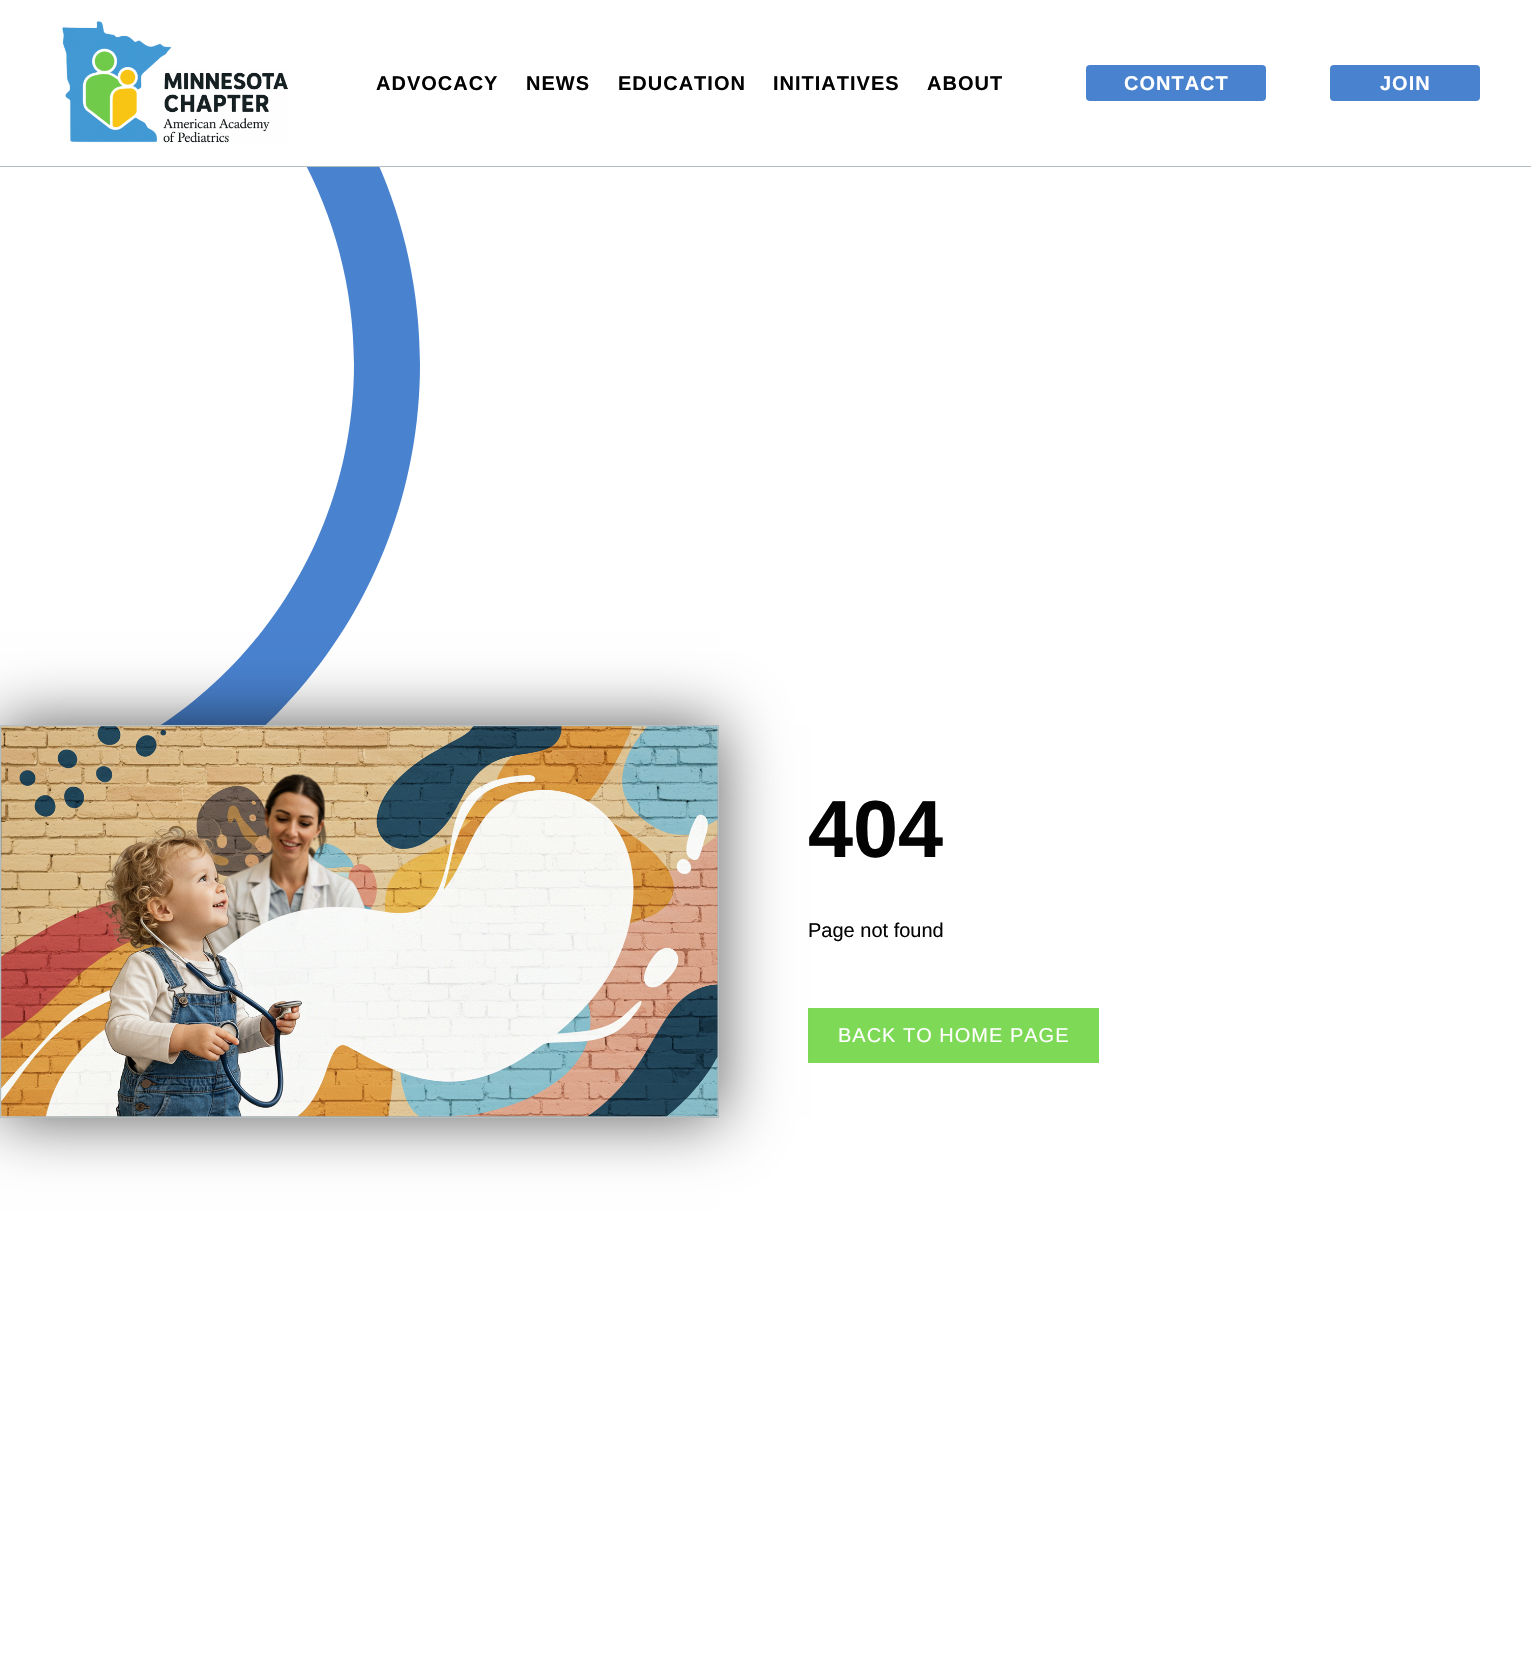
#include "include/core/SkBlurTypes.h"
#include "include/core/SkCanvas.h"
#include "include/core/SkData.h"
#include "include/core/SkFont.h"
#include "include/core/SkFontMgr.h"
#include "include/core/SkImage.h"
#include "include/core/SkMaskFilter.h"
#include "include/core/SkPaint.h"
#include "include/core/SkPathBuilder.h"
#include "include/core/SkTextBlob.h"
#include "include/effects/SkDashPathEffect.h"
#include "include/effects/SkGradientShader.h"
#include "include/utils/SkParsePath.h"

extern sk_sp<SkFontMgr> fontMgr;

void draw(SkCanvas* canvas) {
  SkPaint p;
  p.setAntiAlias(true);
  auto spacedText = [&](const char* s, float x, float y, const SkFont& font, const SkPaint& ink, float letter, float word) {
    std::vector<SkGlyphID> glyphs(font.countText(s, strlen(s), SkTextEncoding::kUTF8));
    std::vector<float> xs(glyphs.size());
    font.textToGlyphs(s, strlen(s), SkTextEncoding::kUTF8, glyphs);
    font.getXPos(glyphs, xs, x);
    float extra = 0;
    for (size_t i = 0; i < glyphs.size(); i++) {
      xs[i] += extra;
      extra += letter + word * (glyphs[i] == font.unicharToGlyph(' '));
    }
    canvas->drawTextBlob(SkTextBlob::MakeFromPosHGlyphs(glyphs, xs, y, font), 0, 0, ink);
  };
  canvas->clear(SK_ColorWHITE);
  p.setColor(SkColorSetRGB(73, 130, 207));
  canvas->drawPath(SkPathBuilder().moveTo(-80, -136).cubicTo(-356, -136, -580, 88, -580, 364).cubicTo(-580, 640, -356, 864, -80, 864).cubicTo(196, 864, 420, 640, 420, 364).cubicTo(420, 88, 196, -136, -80, -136).close().moveTo(-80, -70).cubicTo(160, -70, 354, 124, 354, 364).cubicTo(354, 604, 160, 798, -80, 798).cubicTo(-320, 798, -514, 604, -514, 364).cubicTo(-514, 124, -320, -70, -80, -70).close().detach(), p);
  p.setColor(SK_ColorWHITE);
  canvas->drawRect(SkRect::MakeLTRB(156, 0, 380, 166), p);
  p.setColor(SkColorSetRGB(176, 189, 193));
  canvas->drawRect(SkRect::MakeLTRB(0, 166, 1531, 167), p);
  canvas->drawImageRect(SkImages::DeferredFromEncodedData(SkData::MakeFromFileName("images/1.png")), SkRect::MakeLTRB(62, 21, 288, 143), SkSamplingOptions());
  p.setColor(SkColorSetRGB(73, 130, 207));
  canvas->drawRoundRect(SkRect::MakeLTRB(1086, 65, 1266, 101), 4, 4, p);
  canvas->drawRoundRect(SkRect::MakeLTRB(1330, 65, 1480, 101), 4, 4, p);
  p.setColor(SkColorSetRGB(126, 217, 87));
  canvas->drawRect(SkRect::MakeLTRB(808, 1008, 1099, 1063), p);
  p.setColor(SkColorSetARGB(166, 0, 0, 0));
  p.setMaskFilter(SkMaskFilter::MakeBlur(kNormal_SkBlurStyle, 31));
  canvas->drawRect(SkRect::MakeLTRB(0, 725, 719, 1118), p);
  p.setMaskFilter(nullptr);
  p.setStyle(SkPaint::kStroke_Style);
  p.setStrokeWidth(1);
  p.setColor(SkColorSetRGB(176, 189, 193));
  canvas->drawRect(SkRect::MakeLTRB(0.5f, 725.5f, 718.5f, 1117.5f), p);
  canvas->drawImageRect(SkImages::DeferredFromEncodedData(SkData::MakeFromFileName("images/2.png")), SkRect::MakeLTRB(1, 726, 718, 1117), SkSamplingOptions());
  SkFont font1(fontMgr->matchFamilyStyle("Liberation Sans", SkFontStyle::Bold()), 20);
  font1.setSubpixel(true);
  p.setStyle(SkPaint::kFill_Style);
  p.setColor(SkColorSetRGB(3, 3, 3));
  spacedText("ADVOCACY", 376, 90, font1, p, 1, 0);
  spacedText("NEWS", 526, 90, font1, p, 1, 0);
  spacedText("EDUCATION", 618, 90, font1, p, 1, 0);
  spacedText("INITIATIVES", 773, 90, font1, p, 1, 0);
  spacedText("ABOUT", 927, 90, font1, p, 1, 0);
  p.setColor(SK_ColorWHITE);
  spacedText("CONTACT", 1124, 90, font1, p, 1, 0);
  spacedText("JOIN", 1380, 90, font1, p, 1, 0);
  SkFont font2(fontMgr->matchFamilyStyle("Liberation Sans", SkFontStyle::Bold()), 81);
  font2.setSubpixel(true);
  p.setColor(SkColorSetRGB(3, 3, 3));
  canvas->drawString("404", 808, 857, font2, p);
  SkFont font3(fontMgr->matchFamilyStyle("Liberation Sans", SkFontStyle::Normal()), 20);
  font3.setSubpixel(true);
  canvas->drawString("Page not found", 808, 937, font3, p);
  p.setColor(SK_ColorWHITE);
  spacedText("BACK TO HOME PAGE", 838, 1042, font3, p, 1, 0);
}
